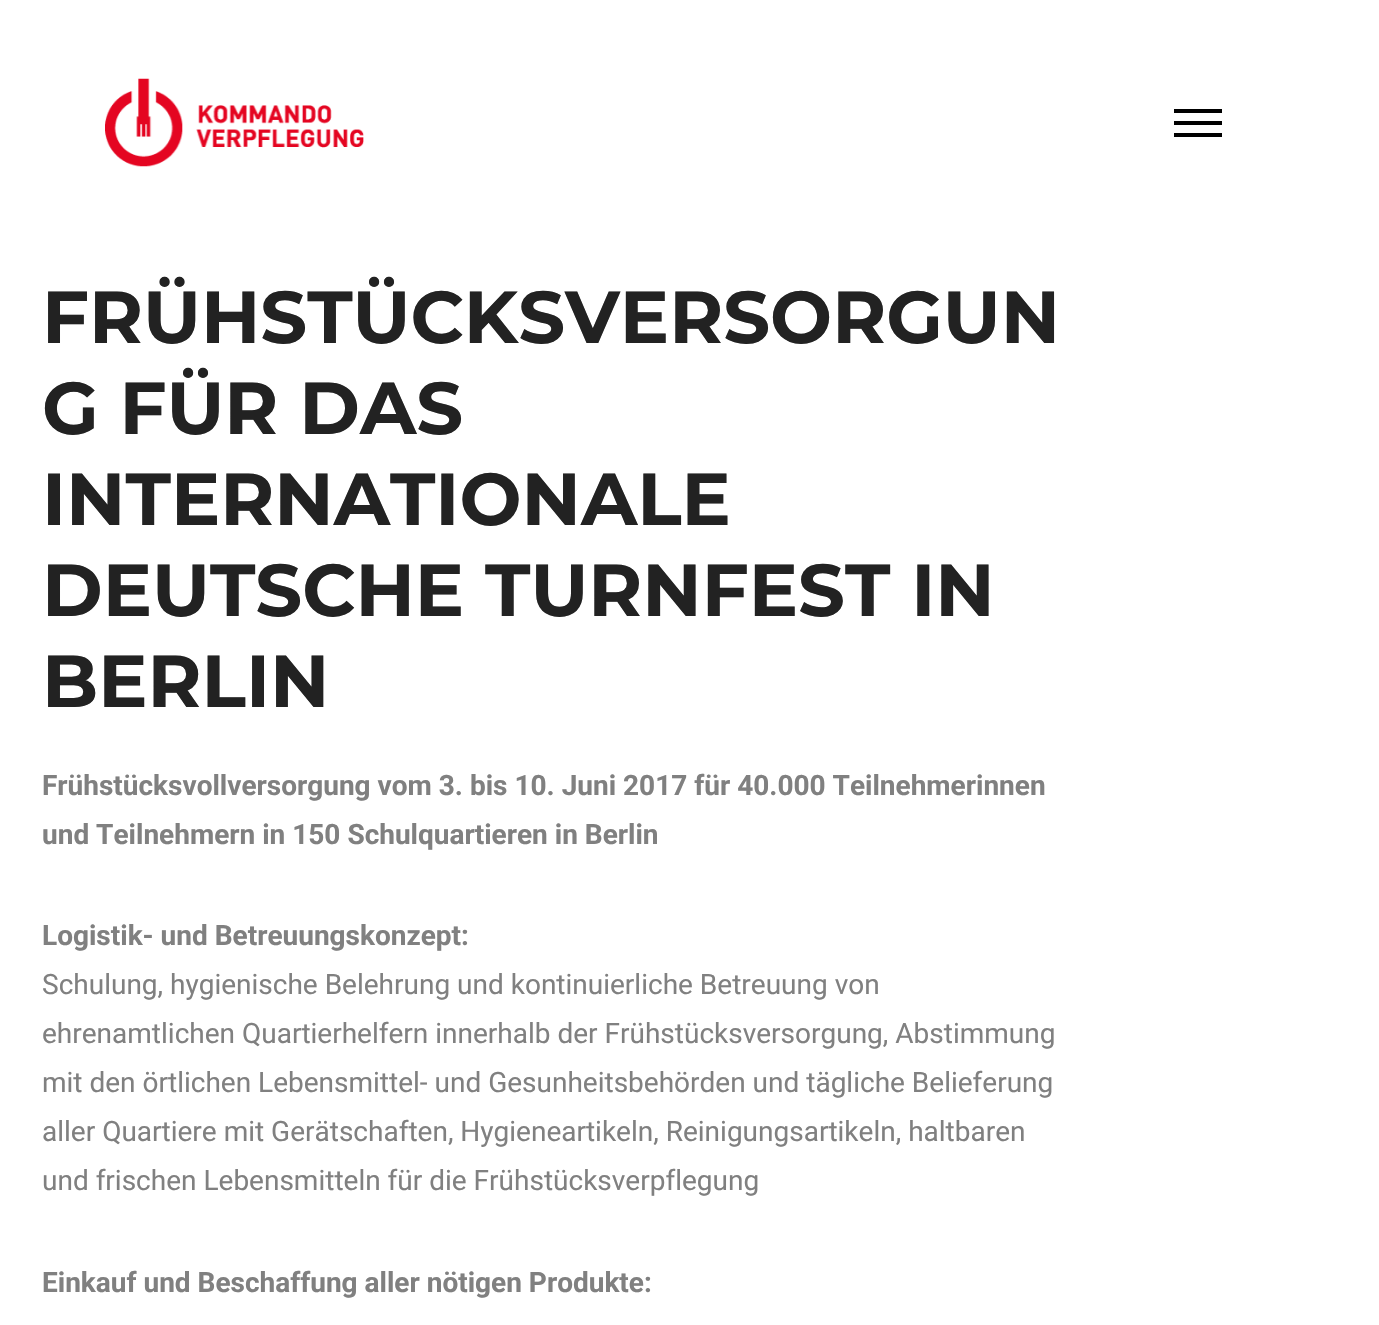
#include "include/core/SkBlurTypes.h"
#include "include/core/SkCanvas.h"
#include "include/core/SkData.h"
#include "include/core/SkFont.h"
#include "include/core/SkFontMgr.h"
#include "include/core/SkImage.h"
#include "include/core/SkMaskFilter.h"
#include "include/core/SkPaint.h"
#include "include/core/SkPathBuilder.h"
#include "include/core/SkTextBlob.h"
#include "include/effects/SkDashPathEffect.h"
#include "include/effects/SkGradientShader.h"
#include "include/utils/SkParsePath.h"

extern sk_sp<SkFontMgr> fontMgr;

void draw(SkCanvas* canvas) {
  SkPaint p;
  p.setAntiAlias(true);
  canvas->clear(SK_ColorWHITE);
  canvas->drawImageRect(SkImages::DeferredFromEncodedData(SkData::MakeFromFileName("images/1.png")), SkRect::MakeLTRB(105, 78, 364, 167), SkSamplingOptions());
  p.setColor(SK_ColorBLACK);
  canvas->drawRect(SkRect::MakeLTRB(1174, 109, 1222, 113), p);
  canvas->drawRect(SkRect::MakeLTRB(1174, 121, 1222, 125), p);
  canvas->drawRect(SkRect::MakeLTRB(1174, 133, 1222, 137), p);
  SkFont font1(fontMgr->matchFamilyStyle("Montserrat", SkFontStyle::Bold()), 73.5f);
  font1.setSubpixel(true);
  p.setColor(SkColorSetRGB(34, 34, 34));
  canvas->drawString("FRÜHSTÜCKSVERSORGUN", 42, 343, font1, p);
  canvas->drawString("G FÜR DAS", 42, 434, font1, p);
  canvas->drawString("INTERNATIONALE", 42, 525, font1, p);
  canvas->drawString("DEUTSCHE TURNFEST IN", 42, 616, font1, p);
  canvas->drawString("BERLIN", 42, 707, font1, p);
  SkFont font2(fontMgr->matchFamilyStyle("Roboto", SkFontStyle::Bold()), 28);
  font2.setSubpixel(true);
  p.setColor(SkColorSetRGB(128, 128, 128));
  canvas->drawString("Frühstücksvollversorgung vom 3. bis 10. Juni 2017 für 40.000 Teilnehmerinnen", 42, 795, font2, p);
  canvas->drawString("und Teilnehmern in 150 Schulquartieren in Berlin", 42, 844, font2, p);
  canvas->drawString("Logistik- und Betreuungskonzept:", 42, 945, font2, p);
  SkFont font3(fontMgr->matchFamilyStyle("Roboto", SkFontStyle::Normal()), 28);
  font3.setSubpixel(true);
  canvas->drawString("Schulung, hygienische Belehrung und kontinuierliche Betreuung von", 42, 994, font3, p);
  canvas->drawString("ehrenamtlichen Quartierhelfern innerhalb der Frühstücksversorgung, Abstimmung", 42, 1043, font3, p);
  canvas->drawString("mit den örtlichen Lebensmittel- und Gesunheitsbehörden und tägliche Belieferung", 42, 1092, font3, p);
  canvas->drawString("aller Quartiere mit Gerätschaften, Hygieneartikeln, Reinigungsartikeln, haltbaren", 42, 1141, font3, p);
  canvas->drawString("und frischen Lebensmitteln für die Frühstücksverpflegung", 42, 1190, font3, p);
  canvas->drawString("Einkauf und Beschaffung aller nötigen Produkte:", 42, 1292, font2, p);
}
